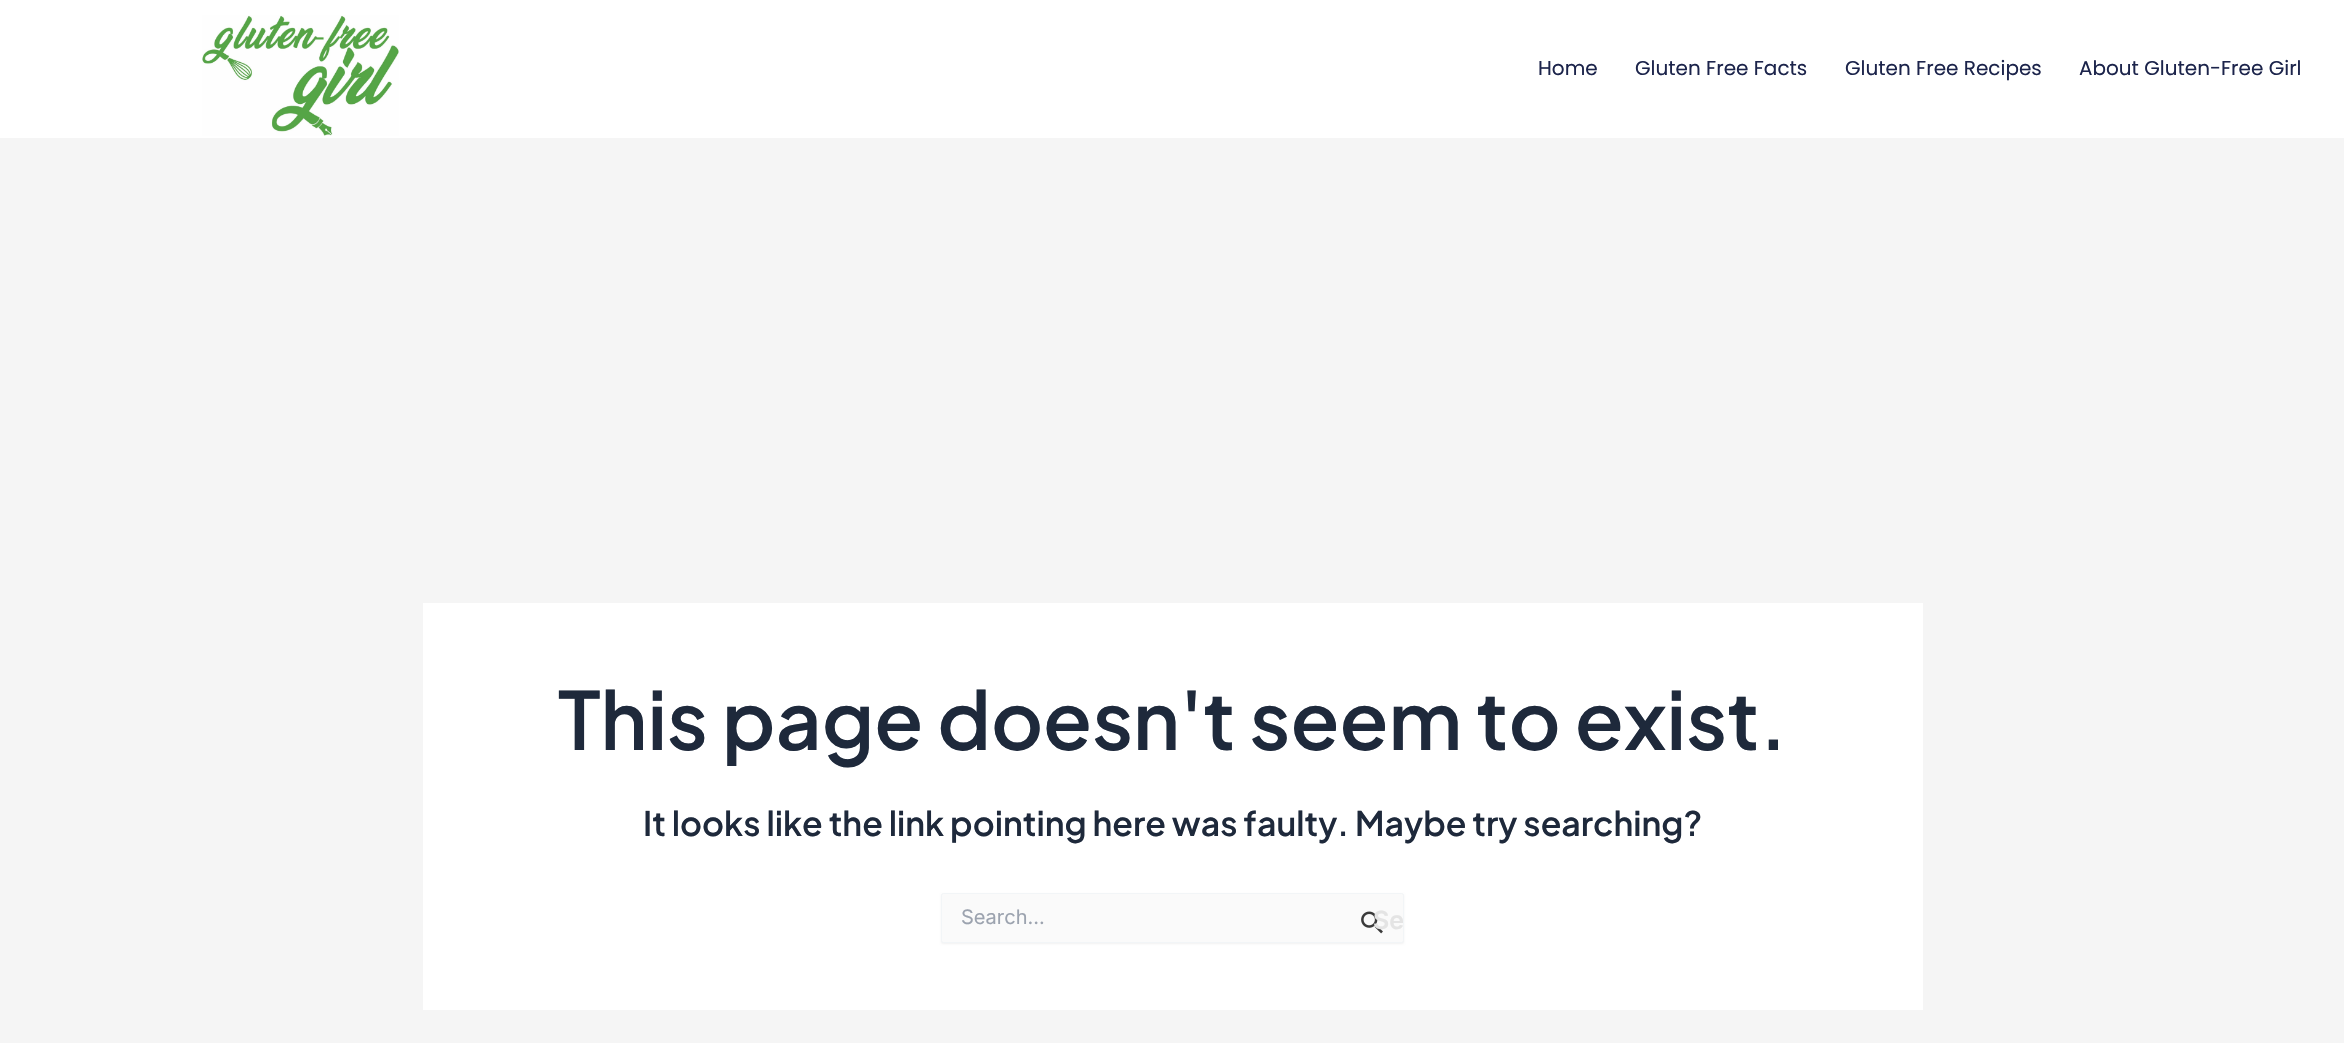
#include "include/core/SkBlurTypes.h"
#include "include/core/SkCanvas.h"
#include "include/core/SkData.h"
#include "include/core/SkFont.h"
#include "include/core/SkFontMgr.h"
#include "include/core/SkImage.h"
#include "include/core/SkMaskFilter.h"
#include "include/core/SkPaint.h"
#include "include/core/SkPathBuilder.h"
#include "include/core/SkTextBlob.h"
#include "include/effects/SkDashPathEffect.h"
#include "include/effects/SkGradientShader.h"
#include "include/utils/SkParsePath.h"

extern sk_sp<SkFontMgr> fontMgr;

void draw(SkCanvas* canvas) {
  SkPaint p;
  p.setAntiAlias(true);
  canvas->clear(SkColorSetRGB(245, 245, 245));
  p.setColor(SK_ColorWHITE);
  canvas->drawRect(SkRect::MakeLTRB(0, 0, 2344, 138), p);
  canvas->drawImageRect(SkImages::DeferredFromEncodedData(SkData::MakeFromFileName("images/1.png")), SkRect::MakeLTRB(202, 15, 399, 136), SkSamplingOptions());
  canvas->drawRect(SkRect::MakeLTRB(423, 603, 1923, 1010), p);
  p.setColor(SkColorSetARGB(13, 0, 0, 0));
  p.setMaskFilter(SkMaskFilter::MakeBlur(kNormal_SkBlurStyle, 1));
  canvas->drawRoundRect(SkRect::MakeLTRB(941, 894, 1404, 944), 2.5f, 2.5f, p);
  p.setMaskFilter(nullptr);
  p.setColor(SkColorSetRGB(250, 250, 250));
  canvas->drawRoundRect(SkRect::MakeLTRB(941.5f, 893.5f, 1403.5f, 942.5f), 2, 2, p);
  p.setStyle(SkPaint::kStroke_Style);
  p.setStrokeWidth(1);
  p.setColor(SkColorSetRGB(242, 245, 247));
  canvas->drawRoundRect(SkRect::MakeLTRB(941.5f, 893.5f, 1403.5f, 942.5f), 2, 2, p);
  canvas->drawImageRect(SkImages::DeferredFromEncodedData(SkData::MakeFromFileName("images/2.png")), SkRect::MakeLTRB(1361, 911, 1383, 934), SkSamplingOptions());
  SkFont font1(fontMgr->matchFamilyStyle("Poppins", SkFontStyle::Normal()), 20);
  font1.setSubpixel(true);
  p.setStyle(SkPaint::kFill_Style);
  p.setColor(SkColorSetRGB(28, 36, 75));
  canvas->drawString("Home", 1538, 75, font1, p);
  canvas->drawString("Gluten Free Facts", 1635, 75, font1, p);
  canvas->drawString("Gluten Free Recipes", 1845, 75, font1, p);
  canvas->drawString("About Gluten-Free Girl", 2079, 75, font1, p);
  SkFont font2(fontMgr->matchFamilyStyle("Plus Jakarta Sans", SkFontStyle(600, SkFontStyle::kNormal_Width, SkFontStyle::kUpright_Slant)), 80);
  font2.setSubpixel(true);
  p.setColor(SkColorSetRGB(30, 41, 59));
  canvas->drawString("This page doesn't seem to exist.", 558, 750, font2, p);
  SkFont font3(fontMgr->matchFamilyStyle("Plus Jakarta Sans", SkFontStyle(600, SkFontStyle::kNormal_Width, SkFontStyle::kUpright_Slant)), 33.75f);
  font3.setSubpixel(true);
  canvas->drawString("It looks like the link pointing here was faulty. Maybe try searching?", 643, 836, font3, p);
  SkFont font4(fontMgr->matchFamilyStyle("Inter", SkFontStyle::Normal()), 20);
  font4.setSubpixel(true);
  p.setColor(SkColorSetRGB(156, 163, 175));
  canvas->drawString("Search...", 961, 924, font4, p);
  SkFont font5(fontMgr->matchFamilyStyle("Inter", SkFontStyle(600, SkFontStyle::kNormal_Width, SkFontStyle::kUpright_Slant)), 25);
  font5.setSubpixel(true);
  p.setColor(SkColorSetRGB(228, 228, 228));
  canvas->drawString("Se", 1373, 929, font5, p);
}
